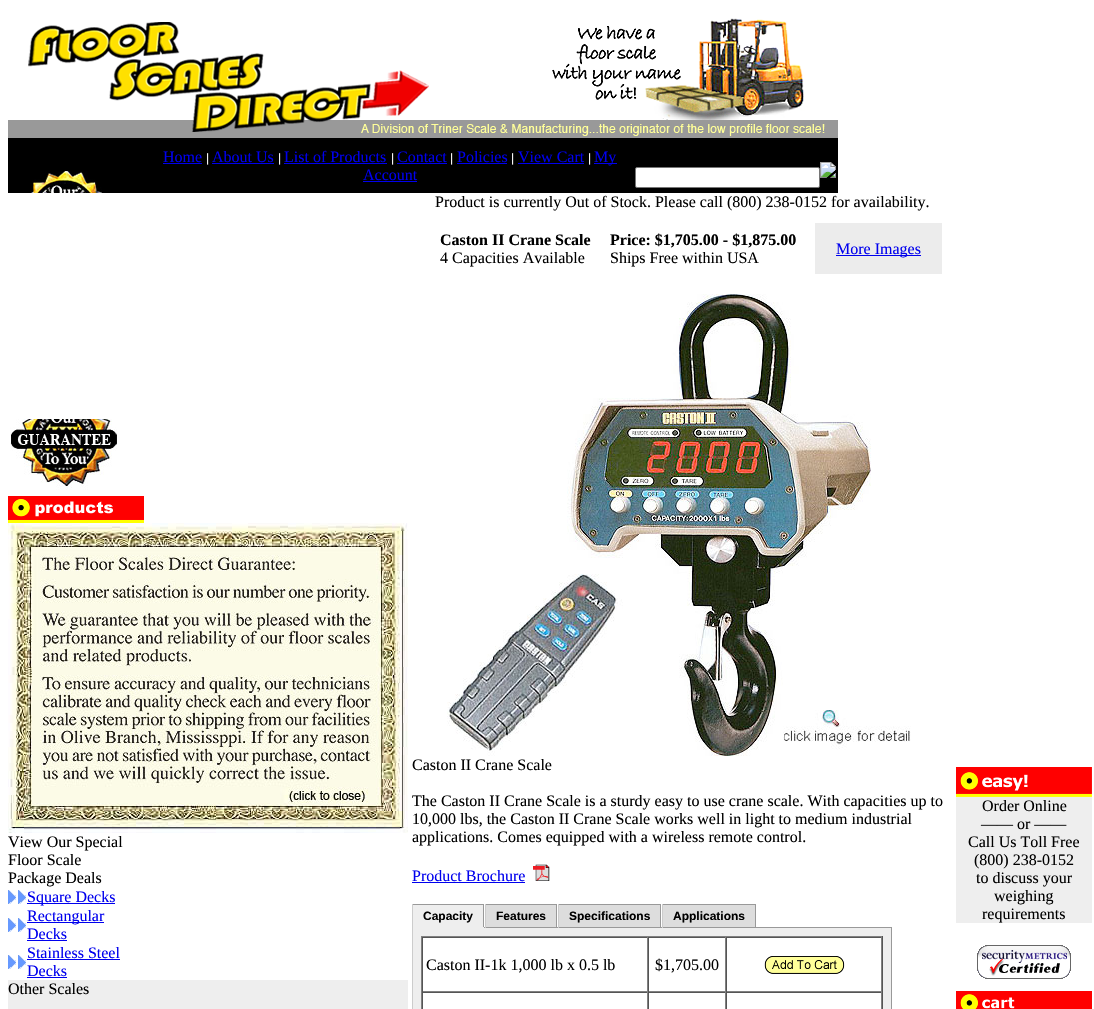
#include "include/core/SkBlurTypes.h"
#include "include/core/SkCanvas.h"
#include "include/core/SkData.h"
#include "include/core/SkFont.h"
#include "include/core/SkFontMgr.h"
#include "include/core/SkImage.h"
#include "include/core/SkMaskFilter.h"
#include "include/core/SkPaint.h"
#include "include/core/SkPathBuilder.h"
#include "include/core/SkTextBlob.h"
#include "include/effects/SkDashPathEffect.h"
#include "include/effects/SkGradientShader.h"
#include "include/utils/SkParsePath.h"

extern sk_sp<SkFontMgr> fontMgr;

void draw(SkCanvas* canvas) {
  SkPaint p;
  p.setAntiAlias(true);
  canvas->clear(SK_ColorWHITE);
  canvas->drawImageRect(SkImages::DeferredFromEncodedData(SkData::MakeFromFileName("images/1.png")), SkRect::MakeLTRB(8, 18, 838, 138), SkSamplingOptions());
  p.setColor(SK_ColorBLACK);
  canvas->drawRect(SkRect::MakeLTRB(8, 138, 838, 193), p);
  canvas->drawImageRect(SkImages::DeferredFromEncodedData(SkData::MakeFromFileName("images/2.png")), SkRect::MakeLTRB(30, 171, 102, 193), SkSamplingOptions());
  p.setColor(SkColorSetRGB(0, 0, 238));
  canvas->drawRect(SkRect::MakeLTRB(163, 163, 202, 164), p);
  canvas->drawRect(SkRect::MakeLTRB(212, 163, 274, 164), p);
  canvas->drawRect(SkRect::MakeLTRB(284, 163, 387, 164), p);
  canvas->drawRect(SkRect::MakeLTRB(397, 163, 447, 164), p);
  canvas->drawRect(SkRect::MakeLTRB(457, 163, 507, 164), p);
  canvas->drawRect(SkRect::MakeLTRB(518, 163, 584, 164), p);
  canvas->drawRect(SkRect::MakeLTRB(594, 163, 617, 164), p);
  canvas->drawRect(SkRect::MakeLTRB(363, 181, 417, 182), p);
  p.setColor(SK_ColorWHITE);
  canvas->drawRoundRect(SkRect::MakeLTRB(635.5f, 167.5f, 819.5f, 187.5f), 1.5f, 1.5f, p);
  p.setStyle(SkPaint::kStroke_Style);
  p.setStrokeWidth(1);
  p.setColor(SkColorSetRGB(118, 118, 118));
  canvas->drawRoundRect(SkRect::MakeLTRB(635.5f, 167.5f, 819.5f, 187.5f), 1.5f, 1.5f, p);
  canvas->drawImageRect(SkImages::DeferredFromEncodedData(SkData::MakeFromFileName("images/3.png")), SkRect::MakeLTRB(820, 162, 836, 178), SkSamplingOptions());
  canvas->drawImageRect(SkImages::DeferredFromEncodedData(SkData::MakeFromFileName("images/4.png")), SkRect::MakeLTRB(10, 419, 117, 490), SkSamplingOptions());
  canvas->drawImageRect(SkImages::DeferredFromEncodedData(SkData::MakeFromFileName("images/5.png")), SkRect::MakeLTRB(8, 496, 144, 523), SkSamplingOptions());
  canvas->drawImageRect(SkImages::DeferredFromEncodedData(SkData::MakeFromFileName("images/6.png")), SkRect::MakeLTRB(8, 523, 408, 833), SkSamplingOptions());
  canvas->drawImageRect(SkImages::DeferredFromEncodedData(SkData::MakeFromFileName("images/7.png")), SkRect::MakeLTRB(8, 890, 26, 904), SkSamplingOptions());
  p.setStyle(SkPaint::kFill_Style);
  p.setColor(SkColorSetRGB(0, 0, 238));
  canvas->drawRect(SkRect::MakeLTRB(27, 903, 115, 904), p);
  canvas->drawImageRect(SkImages::DeferredFromEncodedData(SkData::MakeFromFileName("images/7.png")), SkRect::MakeLTRB(8, 918, 26, 932), SkSamplingOptions());
  canvas->drawRect(SkRect::MakeLTRB(27, 922, 104, 923), p);
  canvas->drawRect(SkRect::MakeLTRB(27, 940, 67, 941), p);
  canvas->drawImageRect(SkImages::DeferredFromEncodedData(SkData::MakeFromFileName("images/7.png")), SkRect::MakeLTRB(8, 955, 26, 969), SkSamplingOptions());
  canvas->drawRect(SkRect::MakeLTRB(27, 959, 120, 960), p);
  canvas->drawRect(SkRect::MakeLTRB(27, 977, 67, 978), p);
  p.setColor(SkColorSetRGB(238, 238, 238));
  canvas->drawRect(SkRect::MakeLTRB(8, 980, 408, 1009), p);
  p.setColor(SkColorSetRGB(236, 236, 236));
  canvas->drawRect(SkRect::MakeLTRB(815, 223, 942, 274), p);
  p.setColor(SkColorSetRGB(0, 0, 238));
  canvas->drawRect(SkRect::MakeLTRB(836, 255, 921, 256), p);
  canvas->drawImageRect(SkImages::DeferredFromEncodedData(SkData::MakeFromFileName("images/8.png")), SkRect::MakeLTRB(447, 294, 911, 756), SkSamplingOptions());
  canvas->drawRect(SkRect::MakeLTRB(412, 882, 525, 883), p);
  canvas->drawImageRect(SkImages::DeferredFromEncodedData(SkData::MakeFromFileName("images/9.png")), SkRect::MakeLTRB(533, 864, 550, 881), SkSamplingOptions());
  p.setColor(SkColorSetRGB(238, 238, 238));
  canvas->drawRect(SkRect::MakeLTRB(413, 905, 483, 927), p);
  p.setColor(SkColorSetRGB(153, 153, 153));
  canvas->drawRect(SkRect::MakeLTRB(412, 904, 484, 905), p);
  canvas->drawRect(SkRect::MakeLTRB(483, 904, 484, 928), p);
  p.setColor(SkColorSetRGB(204, 204, 204));
  canvas->drawRect(SkRect::MakeLTRB(412, 927, 413, 1009), p);
  p.setColor(SkColorSetRGB(238, 238, 238));
  canvas->drawRect(SkRect::MakeLTRB(412, 927, 484, 928), p);
  p.setColor(SkColorSetRGB(204, 204, 204));
  canvas->drawRect(SkRect::MakeLTRB(412, 904, 413, 928), p);
  p.setColor(SkColorSetRGB(221, 221, 221));
  canvas->drawRect(SkRect::MakeLTRB(486, 905, 556, 927), p);
  p.setColor(SkColorSetRGB(153, 153, 153));
  canvas->drawRect(SkRect::MakeLTRB(485, 904, 557, 905), p);
  canvas->drawRect(SkRect::MakeLTRB(484, 927, 892, 928), p);
  canvas->drawRect(SkRect::MakeLTRB(556, 904, 557, 928), p);
  p.setColor(SkColorSetRGB(204, 204, 204));
  canvas->drawRect(SkRect::MakeLTRB(485, 904, 486, 928), p);
  p.setColor(SkColorSetRGB(221, 221, 221));
  canvas->drawRect(SkRect::MakeLTRB(559, 905, 660, 927), p);
  p.setColor(SkColorSetRGB(153, 153, 153));
  canvas->drawRect(SkRect::MakeLTRB(558, 904, 661, 905), p);
  canvas->drawRect(SkRect::MakeLTRB(660, 904, 661, 928), p);
  p.setColor(SkColorSetRGB(204, 204, 204));
  canvas->drawRect(SkRect::MakeLTRB(558, 904, 559, 928), p);
  p.setColor(SkColorSetRGB(221, 221, 221));
  canvas->drawRect(SkRect::MakeLTRB(663, 905, 755, 927), p);
  p.setColor(SkColorSetRGB(153, 153, 153));
  canvas->drawRect(SkRect::MakeLTRB(662, 904, 756, 905), p);
  canvas->drawRect(SkRect::MakeLTRB(755, 904, 756, 928), p);
  p.setColor(SkColorSetRGB(204, 204, 204));
  canvas->drawRect(SkRect::MakeLTRB(662, 904, 663, 928), p);
  p.setColor(SkColorSetRGB(238, 238, 238));
  canvas->drawRect(SkRect::MakeLTRB(413, 928, 891, 1009), p);
  p.setColor(SkColorSetRGB(153, 153, 153));
  canvas->drawRect(SkRect::MakeLTRB(891, 927, 892, 1009), p);
  p.setColor(SK_ColorWHITE);
  canvas->drawRect(SkRect::MakeLTRB(423, 938, 881, 1009), p);
  p.setColor(SkColorSetRGB(128, 128, 128));
  canvas->drawRect(SkRect::MakeLTRB(421, 936, 883, 937), p);
  p.setColor(SkColorSetRGB(85, 85, 85));
  canvas->drawRect(SkRect::MakeLTRB(882, 936, 883, 1009), p);
  p.setColor(SkColorSetRGB(128, 128, 128));
  canvas->drawRect(SkRect::MakeLTRB(421, 936, 422, 1009), p);
  p.setColor(SkColorSetRGB(85, 85, 85));
  canvas->drawRect(SkRect::MakeLTRB(422, 937, 882, 938), p);
  p.setColor(SkColorSetRGB(128, 128, 128));
  canvas->drawRect(SkRect::MakeLTRB(647, 937, 648, 992), p);
  canvas->drawRect(SkRect::MakeLTRB(422, 991, 648, 992), p);
  p.setColor(SkColorSetRGB(85, 85, 85));
  canvas->drawRect(SkRect::MakeLTRB(422, 937, 423, 992), p);
  p.setColor(SkColorSetRGB(128, 128, 128));
  canvas->drawRect(SkRect::MakeLTRB(725, 937, 726, 992), p);
  canvas->drawRect(SkRect::MakeLTRB(648, 991, 726, 992), p);
  p.setColor(SkColorSetRGB(85, 85, 85));
  canvas->drawRect(SkRect::MakeLTRB(648, 937, 649, 992), p);
  p.setColor(SkColorSetRGB(128, 128, 128));
  canvas->drawRect(SkRect::MakeLTRB(881, 937, 882, 992), p);
  canvas->drawRect(SkRect::MakeLTRB(726, 991, 882, 992), p);
  p.setColor(SkColorSetRGB(85, 85, 85));
  canvas->drawRect(SkRect::MakeLTRB(726, 937, 727, 992), p);
  canvas->drawImageRect(SkImages::DeferredFromEncodedData(SkData::MakeFromFileName("images/10.png")), SkRect::MakeLTRB(764, 956, 845, 974), SkSamplingOptions());
  canvas->drawRect(SkRect::MakeLTRB(422, 992, 882, 993), p);
  p.setColor(SkColorSetRGB(128, 128, 128));
  canvas->drawRect(SkRect::MakeLTRB(647, 992, 648, 1009), p);
  p.setColor(SkColorSetRGB(85, 85, 85));
  canvas->drawRect(SkRect::MakeLTRB(422, 992, 423, 1009), p);
  p.setColor(SkColorSetRGB(128, 128, 128));
  canvas->drawRect(SkRect::MakeLTRB(725, 992, 726, 1009), p);
  p.setColor(SkColorSetRGB(85, 85, 85));
  canvas->drawRect(SkRect::MakeLTRB(648, 992, 649, 1009), p);
  p.setColor(SkColorSetRGB(128, 128, 128));
  canvas->drawRect(SkRect::MakeLTRB(881, 992, 882, 1009), p);
  p.setColor(SkColorSetRGB(85, 85, 85));
  canvas->drawRect(SkRect::MakeLTRB(726, 992, 727, 1009), p);
  canvas->drawImageRect(SkImages::DeferredFromEncodedData(SkData::MakeFromFileName("images/11.png")), SkRect::MakeLTRB(956, 767, 1092, 797), SkSamplingOptions());
  p.setColor(SkColorSetRGB(238, 238, 238));
  canvas->drawRect(SkRect::MakeLTRB(956, 797, 1092, 923), p);
  canvas->drawImageRect(SkImages::DeferredFromEncodedData(SkData::MakeFromFileName("images/12.png")), SkRect::MakeLTRB(977, 945, 1071, 979), SkSamplingOptions());
  canvas->drawImageRect(SkImages::DeferredFromEncodedData(SkData::MakeFromFileName("images/13.png")), SkRect::MakeLTRB(956, 991, 1092, 1009), SkSamplingOptions());
  SkFont font1(fontMgr->matchFamilyStyle("Liberation Serif", SkFontStyle::Normal()), 16);
  font1.setSubpixel(true);
  p.setColor(SkColorSetRGB(0, 0, 238));
  canvas->drawString("Home", 163, 162, font1, p);
  SkFont font2(fontMgr->matchFamilyStyle("Liberation Sans", SkFontStyle::Normal()), 12);
  font2.setSubpixel(true);
  p.setColor(SK_ColorWHITE);
  canvas->drawString("|", 206, 162, font2, p);
  p.setColor(SkColorSetRGB(0, 0, 238));
  canvas->drawString("About Us", 212, 162, font1, p);
  p.setColor(SK_ColorWHITE);
  canvas->drawString("|", 278, 162, font2, p);
  p.setColor(SkColorSetRGB(0, 0, 238));
  canvas->drawString("List of Products", 284, 162, font1, p);
  p.setColor(SK_ColorWHITE);
  canvas->drawString("|", 391, 162, font2, p);
  p.setColor(SkColorSetRGB(0, 0, 238));
  canvas->drawString("Contact", 397, 162, font1, p);
  p.setColor(SK_ColorWHITE);
  canvas->drawString("|", 450, 162, font2, p);
  p.setColor(SkColorSetRGB(0, 0, 238));
  canvas->drawString("Policies", 457, 162, font1, p);
  p.setColor(SK_ColorWHITE);
  canvas->drawString("|", 511, 162, font2, p);
  p.setColor(SkColorSetRGB(0, 0, 238));
  canvas->drawString("View Cart", 518, 162, font1, p);
  p.setColor(SK_ColorWHITE);
  canvas->drawString("|", 588, 162, font2, p);
  p.setColor(SkColorSetRGB(0, 0, 238));
  canvas->drawString("My", 594, 162, font1, p);
  canvas->drawString("Account", 363, 180, font1, p);
  p.setColor(SK_ColorBLACK);
  canvas->drawString("View Our Special", 8, 847, font1, p);
  canvas->drawString("Floor Scale", 8, 865, font1, p);
  canvas->drawString("Package Deals", 8, 883, font1, p);
  p.setColor(SkColorSetRGB(0, 0, 238));
  canvas->drawString("Square Decks", 27, 902, font1, p);
  canvas->drawString("Rectangular", 27, 921, font1, p);
  canvas->drawString("Decks", 27, 939, font1, p);
  canvas->drawString("Stainless Steel", 27, 958, font1, p);
  canvas->drawString("Decks", 27, 976, font1, p);
  p.setColor(SK_ColorBLACK);
  canvas->drawString("Other Scales", 8, 994, font1, p);
  canvas->drawString("Product is currently Out of Stock. Please call (800) 238-0152 for availability.", 435, 207, font1, p);
  SkFont font3(fontMgr->matchFamilyStyle("Liberation Serif", SkFontStyle::Bold()), 16);
  font3.setSubpixel(true);
  canvas->drawString("Caston II Crane Scale", 440, 245, font3, p);
  canvas->drawString("4 Capacities Available", 440, 263, font1, p);
  canvas->drawString("Price: $1,705.00 - $1,875.00", 610, 245, font3, p);
  canvas->drawString("Ships Free within USA", 610, 263, font1, p);
  p.setColor(SkColorSetRGB(0, 0, 238));
  canvas->drawString("More Images", 836, 254, font1, p);
  p.setColor(SK_ColorBLACK);
  canvas->drawString("Caston II Crane Scale", 412, 770, font1, p);
  canvas->drawString("The Caston II Crane Scale is a sturdy easy to use crane scale. With capacities up to", 412, 806, font1, p);
  canvas->drawString("10,000 lbs, the Caston II Crane Scale works well in light to medium industrial", 412, 824, font1, p);
  canvas->drawString("applications. Comes equipped with a wireless remote control.", 412, 842, font1, p);
  p.setColor(SkColorSetRGB(0, 0, 238));
  canvas->drawString("Product Brochure", 412, 881, font1, p);
  SkFont font4(fontMgr->matchFamilyStyle("Liberation Sans", SkFontStyle::Bold()), 12);
  font4.setSubpixel(true);
  p.setColor(SK_ColorBLACK);
  canvas->drawString("Capacity", 423, 920, font4, p);
  canvas->drawString("Features", 496, 920, font4, p);
  canvas->drawString("Specifications", 569, 920, font4, p);
  canvas->drawString("Applications", 673, 920, font4, p);
  canvas->drawString("Caston II-1k 1,000 lb x 0.5 lb", 426, 970, font1, p);
  canvas->drawString("$1,705.00", 655, 970, font1, p);
  canvas->drawString("Order Online", 982, 811, font1, p);
  canvas->drawString("—— or ——", 981, 829, font1, p);
  canvas->drawString("Call Us Toll Free", 968, 847, font1, p);
  canvas->drawString("(800) 238-0152", 974, 865, font1, p);
  canvas->drawString("to discuss your", 976, 883, font1, p);
  canvas->drawString("weighing", 994, 901, font1, p);
  canvas->drawString("requirements", 982, 919, font1, p);
}
